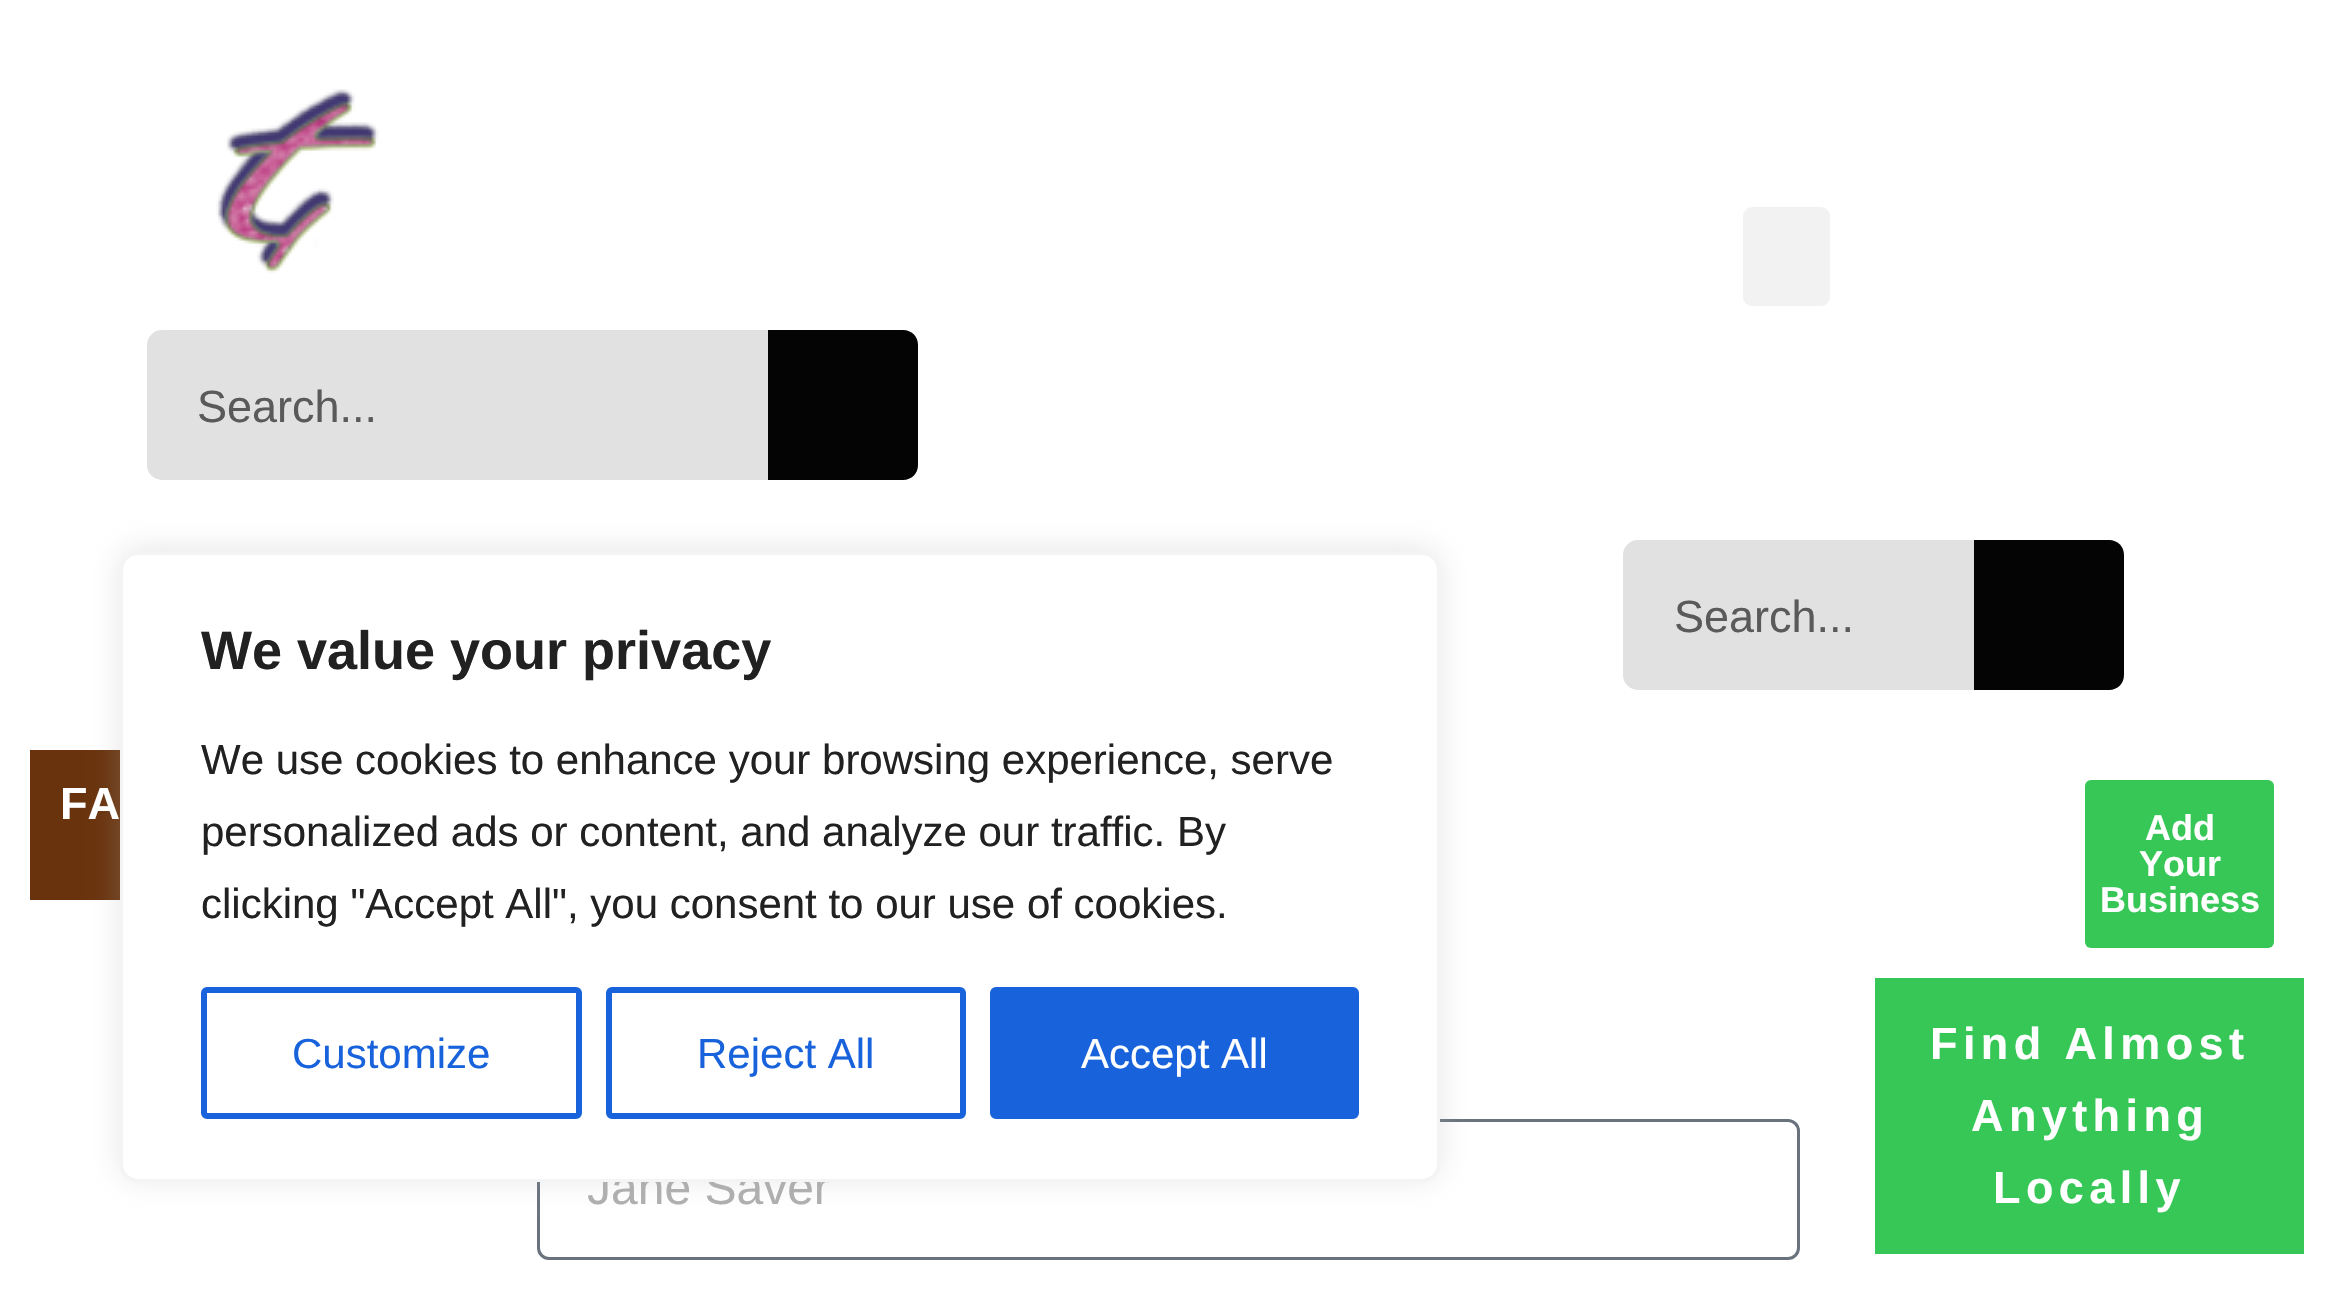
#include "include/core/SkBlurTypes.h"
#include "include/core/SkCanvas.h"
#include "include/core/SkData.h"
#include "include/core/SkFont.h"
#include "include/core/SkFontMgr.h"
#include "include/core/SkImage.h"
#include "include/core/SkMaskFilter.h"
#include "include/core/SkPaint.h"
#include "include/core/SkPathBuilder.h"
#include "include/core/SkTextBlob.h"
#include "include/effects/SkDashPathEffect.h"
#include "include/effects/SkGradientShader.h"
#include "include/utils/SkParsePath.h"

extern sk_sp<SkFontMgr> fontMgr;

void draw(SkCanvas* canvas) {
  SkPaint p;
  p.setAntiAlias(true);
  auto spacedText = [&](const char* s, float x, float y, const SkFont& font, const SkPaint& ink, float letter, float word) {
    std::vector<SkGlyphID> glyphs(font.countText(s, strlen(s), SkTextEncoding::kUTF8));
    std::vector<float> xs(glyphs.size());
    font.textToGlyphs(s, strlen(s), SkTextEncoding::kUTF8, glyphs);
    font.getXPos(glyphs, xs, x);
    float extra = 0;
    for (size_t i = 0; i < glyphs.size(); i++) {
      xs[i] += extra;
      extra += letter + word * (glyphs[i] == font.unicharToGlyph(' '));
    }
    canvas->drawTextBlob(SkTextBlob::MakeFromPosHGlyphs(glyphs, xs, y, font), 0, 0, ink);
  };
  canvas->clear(SK_ColorWHITE);
  p.setColor(SkColorSetRGB(242, 242, 242));
  canvas->drawRoundRect(SkRect::MakeLTRB(1743, 207, 1830, 306), 9, 9, p);
  canvas->drawImageRect(SkImages::DeferredFromEncodedData(SkData::MakeFromFileName("images/1.png")), SkRect::MakeLTRB(216, 89, 379, 274), SkSamplingOptions());
  p.setColor(SkColorSetRGB(225, 225, 225));
  canvas->drawRoundRect(SkRect::MakeLTRB(147, 330, 918, 480), 15, 15, p);
  p.setColor(SkColorSetRGB(4, 4, 5));
  canvas->drawPath(SkPathBuilder().moveTo(768, 330).lineTo(903, 330).cubicTo(911.5f, 330, 918, 336.5f, 918, 345).lineTo(918, 465).cubicTo(918, 473.5f, 911.5f, 480, 903, 480).lineTo(768, 480).close().detach(), p);
  p.setColor(SkColorSetRGB(225, 225, 225));
  canvas->drawRoundRect(SkRect::MakeLTRB(1623, 540, 2124, 690), 15, 15, p);
  p.setColor(SkColorSetRGB(4, 4, 5));
  canvas->drawPath(SkPathBuilder().moveTo(1974, 540).lineTo(2109, 540).cubicTo(2117.5f, 540, 2124, 546.5f, 2124, 555).lineTo(2124, 675).cubicTo(2124, 683.5f, 2117.5f, 690, 2109, 690).lineTo(1974, 690).close().detach(), p);
  p.setColor(SkColorSetRGB(105, 51, 13));
  canvas->drawRect(SkRect::MakeLTRB(30, 750, 120, 900), p);
  p.setStyle(SkPaint::kStroke_Style);
  p.setStrokeWidth(3);
  p.setColor(SkColorSetRGB(105, 114, 125));
  canvas->drawRoundRect(SkRect::MakeLTRB(538.5f, 1120.5f, 1798.5f, 1258.5f), 10.5f, 10.5f, p);
  p.setStyle(SkPaint::kFill_Style);
  p.setColor(SkColorSetARGB(77, 172, 171, 171));
  p.setMaskFilter(SkMaskFilter::MakeBlur(kNormal_SkBlurStyle, 15));
  canvas->drawRoundRect(SkRect::MakeLTRB(120, 549, 1440, 1179), 18, 18, p);
  p.setMaskFilter(nullptr);
  p.setColor(SkColorSetRGB(54, 199, 87));
  canvas->drawRoundRect(SkRect::MakeLTRB(2085, 780, 2274, 948), 6, 6, p);
  canvas->drawRect(SkRect::MakeLTRB(1875, 978, 2304, 1254), p);
  SkFont font1(fontMgr->matchFamilyStyle("Liberation Sans", SkFontStyle::Normal()), 45);
  font1.setSubpixel(true);
  p.setColor(SkColorSetRGB(90, 90, 90));
  canvas->drawString("Search...", 197, 422, font1, p);
  canvas->drawString("Search...", 1674, 632, font1, p);
  SkFont font2(fontMgr->matchFamilyStyle("Liberation Sans", SkFontStyle::Bold()), 45);
  font2.setSubpixel(true);
  p.setColor(SK_ColorWHITE);
  canvas->drawString("FA", 60, 819, font2, p);
  canvas->save();
  canvas->clipRect(SkRect::MakeLTRB(588, 1161, 1749, 1215));
  SkFont font3(fontMgr->matchFamilyStyle("Liberation Sans", SkFontStyle::Normal()), 48);
  font3.setSubpixel(true);
  p.setColor(SkColorSetRGB(175, 175, 175));
  canvas->drawString("Jane Saver", 587, 1204, font3, p);
  canvas->restore();
  p.setColor(SK_ColorWHITE);
  canvas->drawRoundRect(SkRect::MakeLTRB(121.5f, 553.5f, 1438.5f, 1180.5f), 16.5f, 16.5f, p);
  p.setStyle(SkPaint::kStroke_Style);
  p.setColor(SkColorSetRGB(244, 244, 244));
  canvas->drawRoundRect(SkRect::MakeLTRB(121.5f, 553.5f, 1438.5f, 1180.5f), 16.5f, 16.5f, p);
  p.setStyle(SkPaint::kFill_Style);
  p.setColor(SkColorSetRGB(24, 99, 220));
  canvas->drawRoundRect(SkRect::MakeLTRB(993, 990, 1356, 1116), 3, 3, p);
  p.setStyle(SkPaint::kStroke_Style);
  p.setStrokeWidth(6);
  canvas->drawRoundRect(SkRect::MakeLTRB(993, 990, 1356, 1116), 3, 3, p);
  SkFont font4(fontMgr->matchFamilyStyle("Liberation Sans", SkFontStyle::Normal()), 42);
  font4.setSubpixel(true);
  p.setStyle(SkPaint::kFill_Style);
  p.setColor(SK_ColorWHITE);
  canvas->drawString("Accept All", 1081, 1068, font4, p);
  p.setStyle(SkPaint::kStroke_Style);
  p.setColor(SkColorSetRGB(24, 99, 220));
  canvas->drawRoundRect(SkRect::MakeLTRB(609, 990, 963, 1116), 3, 3, p);
  p.setStyle(SkPaint::kFill_Style);
  canvas->drawString("Reject All", 697, 1068, font4, p);
  p.setStyle(SkPaint::kStroke_Style);
  canvas->drawRoundRect(SkRect::MakeLTRB(204, 990, 579, 1116), 3, 3, p);
  p.setStyle(SkPaint::kFill_Style);
  canvas->drawString("Customize", 292, 1068, font4, p);
  p.setColor(SkColorSetRGB(33, 33, 33));
  canvas->drawString("clicking \"Accept All\", you consent to our use of cookies.", 201, 918, font4, p);
  canvas->drawString("personalized ads or content, and analyze our traffic. By", 201, 846, font4, p);
  canvas->drawString("We use cookies to enhance your browsing experience, serve", 201, 774, font4, p);
  SkFont font5(fontMgr->matchFamilyStyle("Liberation Sans", SkFontStyle::Bold()), 54);
  font5.setSubpixel(true);
  canvas->drawString("We value your privacy", 201, 669, font5, p);
  SkFont font6(fontMgr->matchFamilyStyle("Liberation Sans", SkFontStyle::Bold()), 36);
  font6.setSubpixel(true);
  p.setColor(SK_ColorWHITE);
  canvas->drawString("Add", 2145, 840, font6, p);
  canvas->drawString("Your", 2139, 876, font6, p);
  canvas->drawString("Business", 2100, 912, font6, p);
  spacedText("Find Almost", 1930, 1059, font2, p, 5.4f, 0);
  spacedText("Anything", 1971, 1131, font2, p, 5.4f, 0);
  spacedText("Locally", 1993, 1203, font2, p, 5.4f, 0);
}
